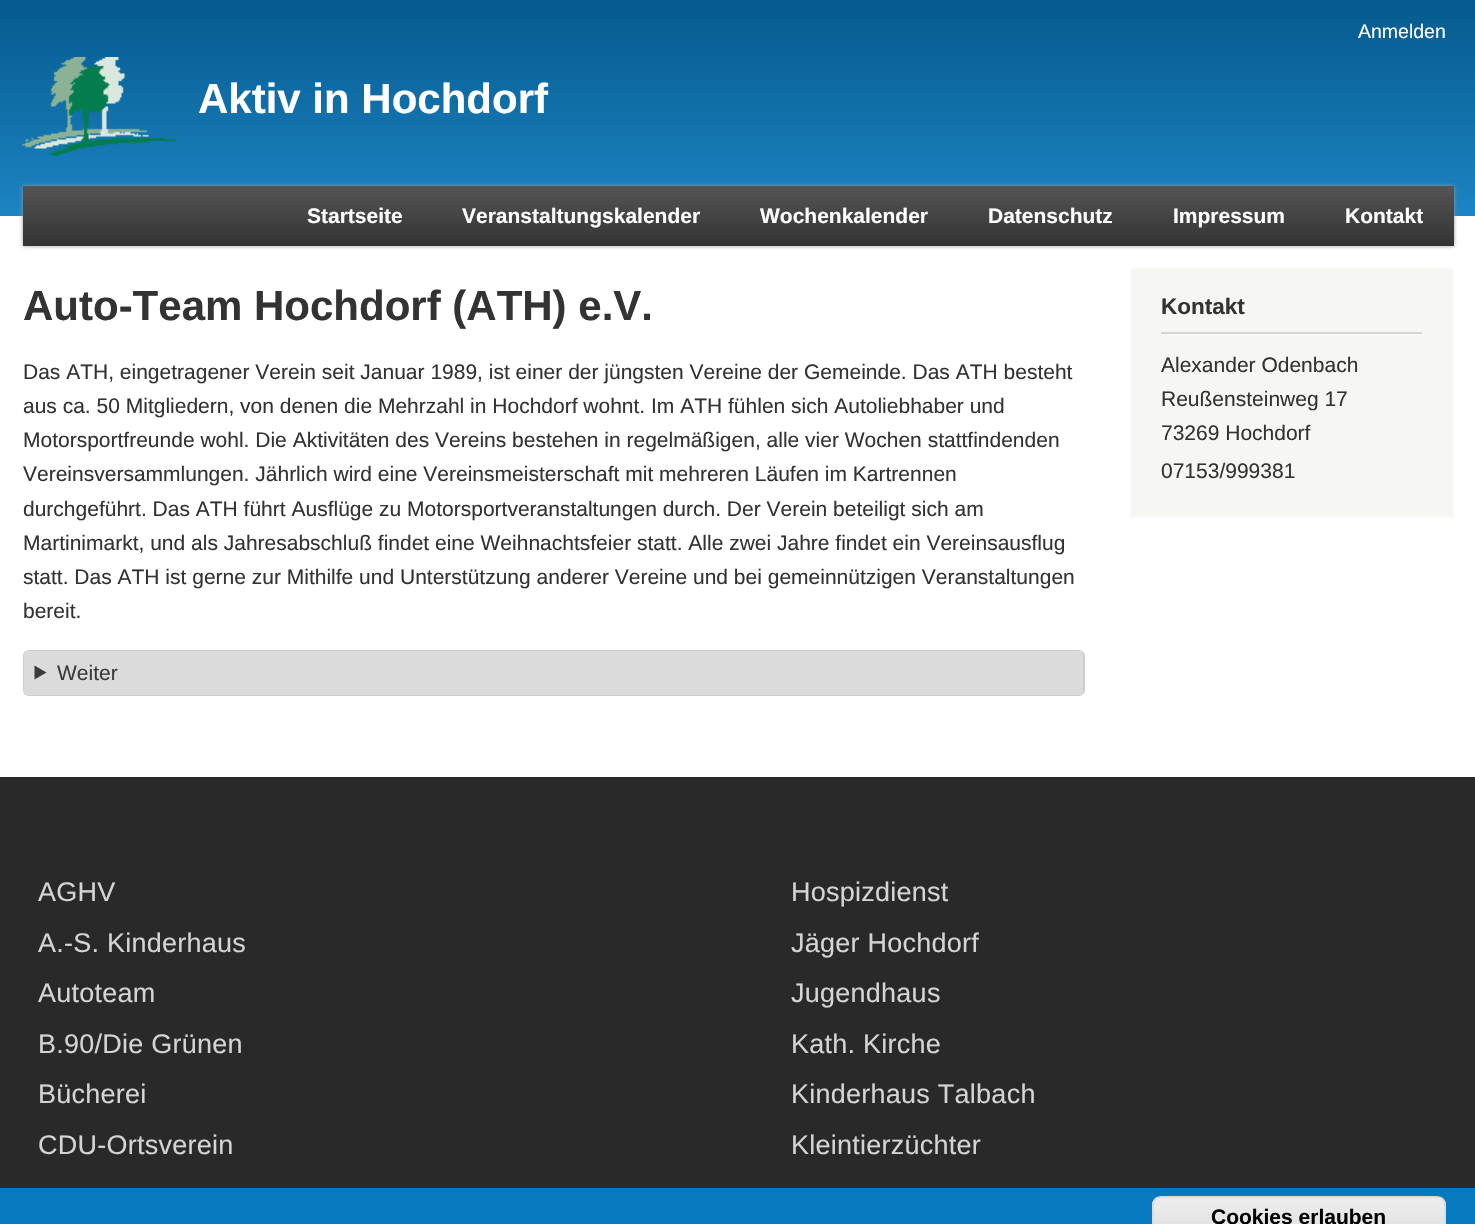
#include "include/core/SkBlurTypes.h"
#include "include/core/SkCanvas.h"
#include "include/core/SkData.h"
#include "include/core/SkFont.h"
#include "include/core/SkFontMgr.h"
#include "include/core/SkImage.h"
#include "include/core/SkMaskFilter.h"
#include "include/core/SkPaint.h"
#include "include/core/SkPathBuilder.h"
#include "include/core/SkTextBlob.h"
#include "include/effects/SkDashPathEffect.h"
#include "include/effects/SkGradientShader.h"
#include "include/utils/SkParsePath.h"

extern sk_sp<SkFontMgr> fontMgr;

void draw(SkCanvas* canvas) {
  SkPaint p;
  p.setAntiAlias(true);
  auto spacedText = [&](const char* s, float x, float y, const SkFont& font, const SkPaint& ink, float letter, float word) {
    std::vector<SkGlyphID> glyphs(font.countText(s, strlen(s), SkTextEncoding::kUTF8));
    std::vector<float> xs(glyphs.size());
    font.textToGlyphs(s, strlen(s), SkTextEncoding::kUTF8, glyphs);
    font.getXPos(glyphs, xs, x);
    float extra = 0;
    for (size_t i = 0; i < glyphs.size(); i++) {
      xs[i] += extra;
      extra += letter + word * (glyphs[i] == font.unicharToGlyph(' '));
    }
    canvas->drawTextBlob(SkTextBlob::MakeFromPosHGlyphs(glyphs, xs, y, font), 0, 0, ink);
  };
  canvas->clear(SK_ColorWHITE);
  {
    const SkColor colors[] = {SkColorSetRGB(5, 90, 142), SkColorSetRGB(29, 132, 195)};
    const float stops[] = {0, 1};
    const SkPoint ends[] = {{738, 0}, {738, 216}};
    p.setShader(SkGradientShader::MakeLinear(ends, colors, stops, 2, SkTileMode::kClamp));
    p.setAlpha(255);
  }
  canvas->drawRect(SkRect::MakeLTRB(0, 0, 1475, 216), p);
  canvas->drawImageRect(SkImages::DeferredFromEncodedData(SkData::MakeFromFileName("images/1.png")), SkRect::MakeLTRB(22, 57, 176, 156), SkSamplingOptions());
  p.setShader(nullptr);
  p.setColor(SkColorSetRGB(153, 153, 153));
  p.setMaskFilter(SkMaskFilter::MakeBlur(kNormal_SkBlurStyle, 2));
  canvas->drawRect(SkRect::MakeLTRB(23, 186, 1454, 246), p);
  p.setMaskFilter(nullptr);
  {
    const SkColor colors[] = {SkColorSetRGB(85, 85, 85), SkColorSetRGB(51, 51, 51), SkColorSetRGB(85, 85, 85), SkColorSetRGB(51, 51, 51)};
    const float stops[] = {0, 0.5f, 0.5f, 1};
    const SkPoint ends[] = {{738, 186}, {738, 306}};
    p.setShader(SkGradientShader::MakeLinear(ends, colors, stops, 4, SkTileMode::kClamp));
    p.setAlpha(255);
  }
  canvas->drawRect(SkRect::MakeLTRB(23, 186, 1454, 246), p);
  p.setStyle(SkPaint::kStroke_Style);
  p.setStrokeWidth(2);
  p.setShader(nullptr);
  p.setColor(SkColorSetRGB(204, 204, 204));
  canvas->drawRoundRect(SkRect::MakeLTRB(24, 651, 1084, 695), 5, 5, p);
  p.setStyle(SkPaint::kFill_Style);
  p.setColor(SkColorSetRGB(219, 219, 219));
  canvas->drawRect(SkRect::MakeLTRB(24, 651, 1083, 695), p);
  p.setColor(SkColorSetRGB(59, 59, 59));
  canvas->drawPath(SkPathBuilder().moveTo(34.5f, 665.5f).lineTo(46.5f, 672.5f).lineTo(34.5f, 679.5f).close().detach(), p);
  p.setColor(SkColorSetRGB(246, 246, 242));
  canvas->drawRect(SkRect::MakeLTRB(1131, 268, 1453, 517), p);
  p.setStyle(SkPaint::kStroke_Style);
  p.setColor(SkColorSetRGB(249, 249, 249));
  canvas->drawRect(SkRect::MakeLTRB(1131, 268, 1453, 517), p);
  p.setStyle(SkPaint::kFill_Style);
  p.setColor(SkColorSetRGB(214, 214, 214));
  canvas->drawRect(SkRect::MakeLTRB(1161, 332, 1422, 334), p);
  p.setColor(SkColorSetRGB(41, 41, 41));
  canvas->drawRect(SkRect::MakeLTRB(0, 777, 1475, 1188), p);
  p.setColor(SkColorSetRGB(7, 121, 191));
  canvas->drawRect(SkRect::MakeLTRB(0, 1188, 1475, 1224), p);
  canvas->save();
  canvas->clipPath(SkPathBuilder().moveTo(1161, 1196).lineTo(1437, 1196).cubicTo(1442, 1196, 1446, 1200, 1446, 1205).lineTo(1446, 1230).cubicTo(1446, 1235, 1442, 1239, 1437, 1239).lineTo(1161, 1239).cubicTo(1156, 1239, 1152, 1235, 1152, 1230).lineTo(1152, 1205).cubicTo(1152, 1200, 1156, 1196, 1161, 1196).close().detach(), true);
  {
    const SkColor colors[] = {SkColorSetRGB(237, 237, 237), SkColorSetRGB(223, 223, 223)};
    const float stops[] = {0.05f, 1};
    const SkPoint ends[] = {{1299, 1197}, {1299, 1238}};
    p.setShader(SkGradientShader::MakeLinear(ends, colors, stops, 2, SkTileMode::kClamp));
    p.setAlpha(255);
  }
  canvas->drawRect(SkRect::MakeLTRB(1152, 1197, 1446, 1224), p);
  canvas->restore();
  p.setShader(nullptr);
  p.setColor(SK_ColorWHITE);
  canvas->drawPath(SkPathBuilder().moveTo(1161, 1198).lineTo(1437, 1198).cubicTo(1441, 1198, 1444, 1202, 1444, 1206).lineTo(1444, 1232).lineTo(1444, 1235).cubicTo(1444, 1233, 1445, 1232, 1445, 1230).lineTo(1445, 1205).cubicTo(1445, 1201, 1441, 1197, 1437, 1197).lineTo(1162, 1197).cubicTo(1158, 1197, 1154, 1201, 1154, 1205).lineTo(1154, 1206).cubicTo(1154, 1202, 1157, 1198, 1161, 1198).close().detach(), p);
  p.setStyle(SkPaint::kStroke_Style);
  p.setColor(SkColorSetRGB(220, 220, 220));
  canvas->drawRoundRect(SkRect::MakeLTRB(1153, 1197, 1445, 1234), 8, 8, p);
  SkFont font1(fontMgr->matchFamilyStyle("Liberation Sans", SkFontStyle::Normal()), 19.5f);
  font1.setSubpixel(true);
  p.setStyle(SkPaint::kFill_Style);
  p.setColor(SkColorSetRGB(255, 254, 255));
  canvas->drawString("Anmelden", 1358, 38, font1, p);
  SkFont font2(fontMgr->matchFamilyStyle("Liberation Sans", SkFontStyle::Bold()), 42);
  font2.setSubpixel(true);
  canvas->drawString("Aktiv in Hochdorf", 198, 113, font2, p);
  SkFont font3(fontMgr->matchFamilyStyle("Liberation Sans", SkFontStyle::Bold()), 21);
  font3.setSubpixel(true);
  canvas->drawString("Startseite", 307, 223, font3, p);
  canvas->drawString("Veranstaltungskalender", 462, 223, font3, p);
  canvas->drawString("Wochenkalender", 760, 223, font3, p);
  canvas->drawString("Datenschutz", 988, 223, font3, p);
  canvas->drawString("Impressum", 1173, 223, font3, p);
  canvas->drawString("Kontakt", 1345, 223, font3, p);
  p.setColor(SkColorSetRGB(51, 51, 51));
  canvas->drawString("Auto-Team Hochdorf (ATH) e.V.", 23, 320, font2, p);
  SkFont font4(fontMgr->matchFamilyStyle("Liberation Sans", SkFontStyle::Normal()), 21);
  font4.setSubpixel(true);
  canvas->drawString("Das ATH, eingetragener Verein seit Januar 1989, ist einer der jüngsten Vereine der Gemeinde. Das ATH besteht", 23, 379, font4, p);
  canvas->drawString("aus ca. 50 Mitgliedern, von denen die Mehrzahl in Hochdorf wohnt. Im ATH fühlen sich Autoliebhaber und", 23, 413, font4, p);
  canvas->drawString("Motorsportfreunde wohl. Die Aktivitäten des Vereins bestehen in regelmäßigen, alle vier Wochen stattfindenden", 23, 447, font4, p);
  canvas->drawString("Vereinsversammlungen. Jährlich wird eine Vereinsmeisterschaft mit mehreren Läufen im Kartrennen", 23, 481, font4, p);
  canvas->drawString("durchgeführt. Das ATH führt Ausflüge zu Motorsportveranstaltungen durch. Der Verein beteiligt sich am", 23, 516, font4, p);
  canvas->drawString("Martinimarkt, und als Jahresabschluß findet eine Weihnachtsfeier statt. Alle zwei Jahre findet ein Vereinsausflug", 23, 550, font4, p);
  canvas->drawString("statt. Das ATH ist gerne zur Mithilfe und Unterstützung anderer Vereine und bei gemeinnützigen Veranstaltungen", 23, 584, font4, p);
  canvas->drawString("bereit.", 23, 618, font4, p);
  p.setColor(SkColorSetRGB(59, 59, 59));
  canvas->drawString("Weiter", 57, 680, font4, p);
  SkFont font5(fontMgr->matchFamilyStyle("Liberation Sans", SkFontStyle::Bold()), 22.5f);
  font5.setSubpixel(true);
  p.setColor(SkColorSetRGB(51, 51, 51));
  canvas->drawString("Kontakt", 1161, 314, font5, p);
  canvas->drawString("Alexander Odenbach", 1161, 372, font4, p);
  canvas->drawString("Reußensteinweg 17", 1161, 406, font4, p);
  canvas->drawString("73269 Hochdorf", 1161, 440, font4, p);
  canvas->drawString("07153/999381", 1161, 478, font4, p);
  SkFont font6(fontMgr->matchFamilyStyle("Liberation Sans", SkFontStyle::Normal()), 27);
  font6.setSubpixel(true);
  p.setColor(SkColorSetRGB(212, 212, 212));
  spacedText("AGHV", 38, 901, font6, p, 0.25f, 0);
  spacedText("A.-S. Kinderhaus", 38, 952, font6, p, 0.25f, 0);
  spacedText("Autoteam", 38, 1002, font6, p, 0.25f, 0);
  spacedText("B.90/Die Grünen", 38, 1053, font6, p, 0.25f, 0);
  spacedText("Bücherei", 38, 1103, font6, p, 0.25f, 0);
  spacedText("CDU-Ortsverein", 38, 1154, font6, p, 0.25f, 0);
  spacedText("Hospizdienst", 791, 901, font6, p, 0.25f, 0);
  spacedText("Jäger Hochdorf", 791, 952, font6, p, 0.25f, 0);
  spacedText("Jugendhaus", 791, 1002, font6, p, 0.25f, 0);
  spacedText("Kath. Kirche", 791, 1053, font6, p, 0.25f, 0);
  spacedText("Kinderhaus Talbach", 791, 1103, font6, p, 0.25f, 0);
  spacedText("Kleintierzüchter", 791, 1154, font6, p, 0.25f, 0);
  p.setColor(SK_ColorBLACK);
  canvas->drawString("Cookies erlauben", 1211, 1224, font3, p);
}
